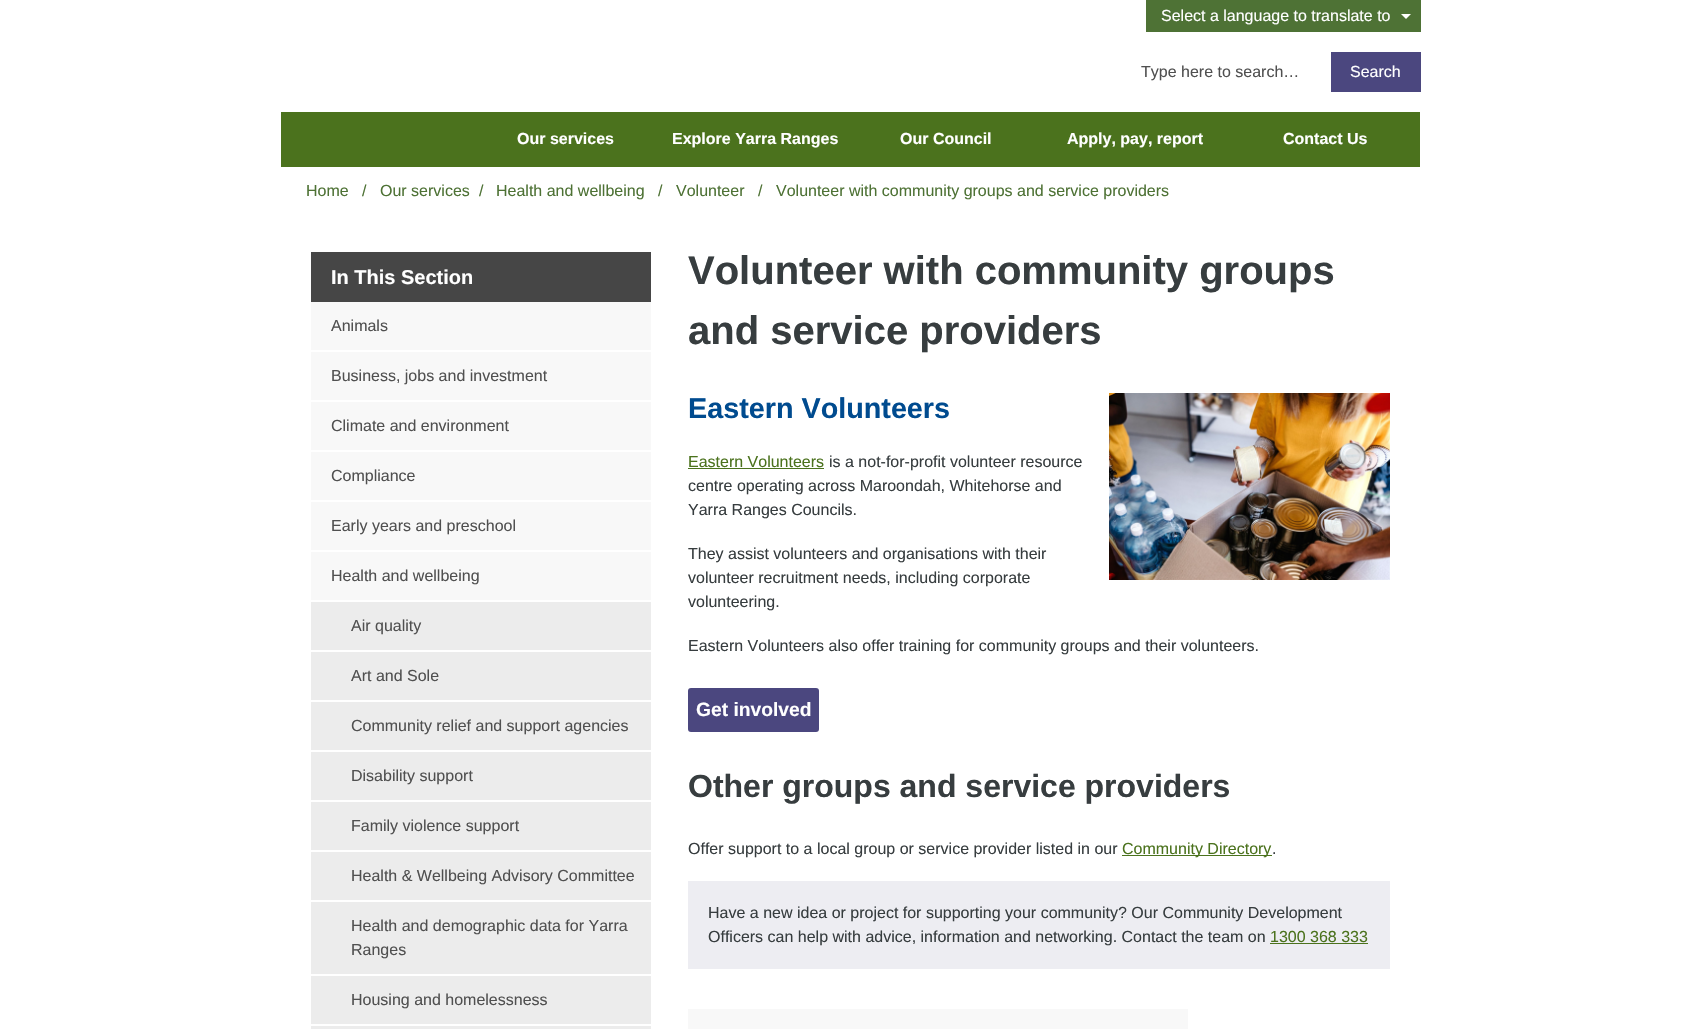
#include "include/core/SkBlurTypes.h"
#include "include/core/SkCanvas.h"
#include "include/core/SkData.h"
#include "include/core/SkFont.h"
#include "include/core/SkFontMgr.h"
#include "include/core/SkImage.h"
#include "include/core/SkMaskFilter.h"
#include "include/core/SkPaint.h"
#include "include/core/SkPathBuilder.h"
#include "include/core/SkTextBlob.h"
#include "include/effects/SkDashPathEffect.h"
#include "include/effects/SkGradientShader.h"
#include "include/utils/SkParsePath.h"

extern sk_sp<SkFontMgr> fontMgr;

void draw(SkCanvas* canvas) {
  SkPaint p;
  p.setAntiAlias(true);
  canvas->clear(SK_ColorWHITE);
  p.setColor(SkColorSetRGB(78, 114, 53));
  canvas->drawRect(SkRect::MakeLTRB(1146, 0, 1421, 32), p);
  p.setColor(SK_ColorWHITE);
  canvas->drawPath(SkPathBuilder().moveTo(1401, 14).lineTo(1411, 14).lineTo(1406, 19).close().detach(), p);
  p.setColor(SkColorSetRGB(75, 71, 127));
  canvas->drawRect(SkRect::MakeLTRB(1331, 52, 1421, 92), p);
  p.setColor(SkColorSetRGB(75, 114, 29));
  canvas->drawRect(SkRect::MakeLTRB(281, 112, 1420, 167), p);
  p.setColor(SkColorSetRGB(70, 70, 70));
  canvas->drawRect(SkRect::MakeLTRB(311, 252, 651, 302), p);
  p.setColor(SkColorSetRGB(248, 248, 248));
  canvas->drawRect(SkRect::MakeLTRB(311, 302, 651, 350), p);
  canvas->drawRect(SkRect::MakeLTRB(311, 352, 651, 400), p);
  canvas->drawRect(SkRect::MakeLTRB(311, 402, 651, 450), p);
  canvas->drawRect(SkRect::MakeLTRB(311, 452, 651, 500), p);
  canvas->drawRect(SkRect::MakeLTRB(311, 502, 651, 550), p);
  canvas->drawRect(SkRect::MakeLTRB(311, 552, 651, 600), p);
  p.setColor(SkColorSetRGB(236, 236, 236));
  canvas->drawRect(SkRect::MakeLTRB(311, 602, 651, 650), p);
  canvas->drawRect(SkRect::MakeLTRB(311, 652, 651, 700), p);
  canvas->drawRect(SkRect::MakeLTRB(311, 702, 651, 750), p);
  canvas->drawRect(SkRect::MakeLTRB(311, 752, 651, 800), p);
  canvas->drawRect(SkRect::MakeLTRB(311, 802, 651, 850), p);
  canvas->drawRect(SkRect::MakeLTRB(311, 852, 651, 900), p);
  canvas->drawRect(SkRect::MakeLTRB(311, 902, 651, 974), p);
  canvas->drawRect(SkRect::MakeLTRB(311, 976, 651, 1024), p);
  canvas->drawRect(SkRect::MakeLTRB(311, 1026, 651, 1029), p);
  canvas->drawImageRect(SkImages::DeferredFromEncodedData(SkData::MakeFromFileName("images/1.png")), SkRect::MakeLTRB(1109, 393, 1390, 580), SkSamplingOptions());
  p.setColor(SkColorSetRGB(75, 114, 29));
  canvas->drawRect(SkRect::MakeLTRB(688, 468, 824, 469), p);
  p.setColor(SkColorSetRGB(75, 71, 127));
  canvas->drawRoundRect(SkRect::MakeLTRB(688, 688, 819, 732), 3, 3, p);
  p.setColor(SkColorSetRGB(75, 114, 29));
  canvas->drawRect(SkRect::MakeLTRB(1122, 855, 1272, 856), p);
  p.setColor(SkColorSetRGB(237, 237, 242));
  canvas->drawRect(SkRect::MakeLTRB(688, 881, 1390, 969), p);
  p.setColor(SkColorSetRGB(75, 114, 29));
  canvas->drawRect(SkRect::MakeLTRB(1270, 943, 1368, 944), p);
  p.setColor(SkColorSetRGB(248, 248, 248));
  canvas->drawRect(SkRect::MakeLTRB(688, 1009, 1188, 1029), p);
  SkFont font1(fontMgr->matchFamilyStyle("Arimo", SkFontStyle::Normal()), 16);
  font1.setSubpixel(true);
  p.setColor(SK_ColorWHITE);
  canvas->drawString("Select a language to translate to", 1161, 21, font1, p);
  p.setColor(SkColorSetRGB(80, 80, 80));
  canvas->drawString("Type here to search…", 1141, 77, font1, p);
  p.setColor(SK_ColorWHITE);
  canvas->drawString("Search", 1350, 77, font1, p);
  SkFont font2(fontMgr->matchFamilyStyle("Liberation Sans", SkFontStyle::Bold()), 16);
  font2.setSubpixel(true);
  canvas->drawString("Our services", 517, 144, font2, p);
  canvas->drawString("Explore Yarra Ranges", 672, 144, font2, p);
  canvas->drawString("Our Council", 900, 144, font2, p);
  canvas->drawString("Apply, pay, report", 1067, 144, font2, p);
  canvas->drawString("Contact Us", 1283, 144, font2, p);
  p.setColor(SkColorSetRGB(78, 114, 53));
  canvas->drawString("Home", 306, 196, font1, p);
  canvas->drawString("/", 362, 196, font1, p);
  canvas->drawString("Our services", 380, 196, font1, p);
  canvas->drawString("/", 479, 196, font1, p);
  canvas->drawString("Health and wellbeing", 496, 196, font1, p);
  canvas->drawString("/", 658, 196, font1, p);
  canvas->drawString("Volunteer", 676, 196, font1, p);
  canvas->drawString("/", 758, 196, font1, p);
  canvas->drawString("Volunteer with community groups and service providers", 776, 196, font1, p);
  SkFont font3(fontMgr->matchFamilyStyle("Arimo", SkFontStyle::Bold()), 20);
  font3.setSubpixel(true);
  p.setColor(SK_ColorWHITE);
  canvas->drawString("In This Section", 331, 284, font3, p);
  p.setColor(SkColorSetRGB(80, 80, 80));
  canvas->drawString("Animals", 331, 331, font1, p);
  canvas->drawString("Business, jobs and investment", 331, 381, font1, p);
  canvas->drawString("Climate and environment", 331, 431, font1, p);
  canvas->drawString("Compliance", 331, 481, font1, p);
  canvas->drawString("Early years and preschool", 331, 531, font1, p);
  canvas->drawString("Health and wellbeing", 331, 581, font1, p);
  canvas->drawString("Air quality", 351, 631, font1, p);
  canvas->drawString("Art and Sole", 351, 681, font1, p);
  canvas->drawString("Community relief and support agencies", 351, 731, font1, p);
  canvas->drawString("Disability support", 351, 781, font1, p);
  canvas->drawString("Family violence support", 351, 831, font1, p);
  canvas->drawString("Health & Wellbeing Advisory Committee", 351, 881, font1, p);
  canvas->drawString("Health and demographic data for Yarra", 351, 931, font1, p);
  canvas->drawString("Ranges", 351, 955, font1, p);
  canvas->drawString("Housing and homelessness", 351, 1005, font1, p);
  SkFont font4(fontMgr->matchFamilyStyle("Arimo", SkFontStyle::Bold()), 40);
  font4.setSubpixel(true);
  p.setColor(SkColorSetRGB(55, 61, 63));
  canvas->drawString("Volunteer with community groups", 688, 284, font4, p);
  canvas->drawString("and service providers", 688, 344, font4, p);
  SkFont font5(fontMgr->matchFamilyStyle("Arimo", SkFontStyle::Bold()), 28.75f);
  font5.setSubpixel(true);
  p.setColor(SkColorSetRGB(0, 75, 143));
  canvas->drawString("Eastern Volunteers", 688, 418, font5, p);
  p.setColor(SkColorSetRGB(75, 114, 29));
  canvas->drawString("Eastern Volunteers", 688, 467, font1, p);
  p.setColor(SkColorSetRGB(55, 61, 63));
  canvas->drawString("is a not-for-profit volunteer resource", 829, 467, font1, p);
  canvas->drawString("centre operating across Maroondah, Whitehorse and", 688, 491, font1, p);
  canvas->drawString("Yarra Ranges Councils.", 688, 515, font1, p);
  canvas->drawString("They assist volunteers and organisations with their", 688, 559, font1, p);
  canvas->drawString("volunteer recruitment needs, including corporate", 688, 583, font1, p);
  canvas->drawString("volunteering.", 688, 607, font1, p);
  canvas->drawString("Eastern Volunteers also offer training for community groups and their volunteers.", 688, 651, font1, p);
  SkFont font6(fontMgr->matchFamilyStyle("Arimo", SkFontStyle::Bold()), 19.25f);
  font6.setSubpixel(true);
  p.setColor(SK_ColorWHITE);
  canvas->drawString("Get involved", 696, 716, font6, p);
  SkFont font7(fontMgr->matchFamilyStyle("Arimo", SkFontStyle::Bold()), 32);
  font7.setSubpixel(true);
  p.setColor(SkColorSetRGB(55, 61, 63));
  canvas->drawString("Other groups and service providers", 688, 797, font7, p);
  canvas->drawString("Offer support to a local group or service provider listed in our", 688, 854, font1, p);
  p.setColor(SkColorSetRGB(75, 114, 29));
  canvas->drawString("Community Directory", 1122, 854, font1, p);
  p.setColor(SkColorSetRGB(55, 61, 63));
  canvas->drawString(".", 1272, 854, font1, p);
  canvas->drawString("Have a new idea or project for supporting your community? Our Community Development", 708, 918, font1, p);
  canvas->drawString("Officers can help with advice, information and networking. Contact the team on", 708, 942, font1, p);
  p.setColor(SkColorSetRGB(75, 114, 29));
  canvas->drawString("1300 368 333", 1270, 942, font1, p);
}
